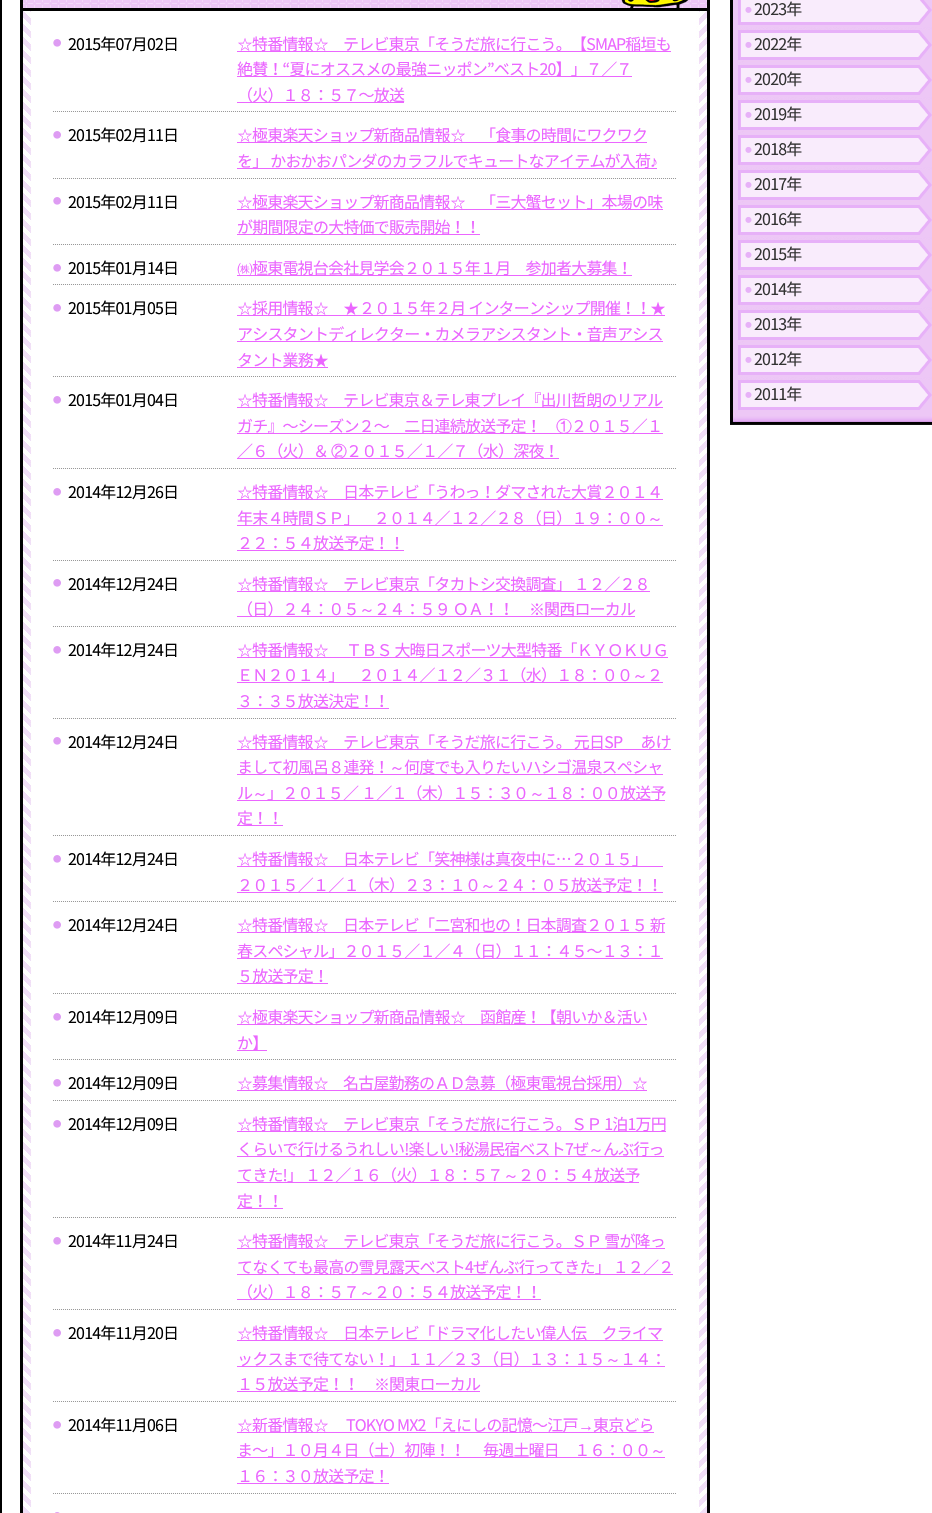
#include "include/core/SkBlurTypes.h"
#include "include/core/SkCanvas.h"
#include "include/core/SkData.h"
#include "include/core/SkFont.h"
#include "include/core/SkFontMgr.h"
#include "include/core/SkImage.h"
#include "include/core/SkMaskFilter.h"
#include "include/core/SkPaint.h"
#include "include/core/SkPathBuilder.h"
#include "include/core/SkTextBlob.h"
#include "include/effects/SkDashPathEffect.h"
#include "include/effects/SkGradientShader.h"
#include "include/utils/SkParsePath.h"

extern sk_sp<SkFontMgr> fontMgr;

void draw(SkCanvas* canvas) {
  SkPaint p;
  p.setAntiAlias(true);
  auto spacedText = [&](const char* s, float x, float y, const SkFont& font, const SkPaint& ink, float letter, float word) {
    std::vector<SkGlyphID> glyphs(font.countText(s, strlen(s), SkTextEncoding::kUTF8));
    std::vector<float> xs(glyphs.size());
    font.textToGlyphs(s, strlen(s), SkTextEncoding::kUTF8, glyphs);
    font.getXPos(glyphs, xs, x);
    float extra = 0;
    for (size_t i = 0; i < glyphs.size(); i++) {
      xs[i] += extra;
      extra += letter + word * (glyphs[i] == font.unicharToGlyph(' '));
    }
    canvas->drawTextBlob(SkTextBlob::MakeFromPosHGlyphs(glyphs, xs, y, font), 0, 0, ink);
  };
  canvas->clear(SK_ColorWHITE);
  canvas->drawImageRect(SkImages::DeferredFromEncodedData(SkData::MakeFromFileName("images/1.png")), SkRect::MakeLTRB(0, 0, 932, 1513), SkSamplingOptions());
  canvas->drawImageRect(SkImages::DeferredFromEncodedData(SkData::MakeFromFileName("images/2.png")), SkRect::MakeLTRB(20, 0, 710, 1513), SkSamplingOptions());
  canvas->drawImageRect(SkImages::DeferredFromEncodedData(SkData::MakeFromFileName("images/3.png")), SkRect::MakeLTRB(22, 0, 707, 11), SkSamplingOptions());
  canvas->drawImageRect(SkImages::DeferredFromEncodedData(SkData::MakeFromFileName("images/4.png")), SkRect::MakeLTRB(53, 111, 676, 112), SkSamplingOptions());
  canvas->drawImageRect(SkImages::DeferredFromEncodedData(SkData::MakeFromFileName("images/5.png")), SkRect::MakeLTRB(53, 39, 61, 47), SkSamplingOptions());
  p.setColor(SkColorSetRGB(235, 102, 255));
  canvas->drawRect(SkRect::MakeLTRB(237, 51, 671, 52), p);
  canvas->drawRect(SkRect::MakeLTRB(237, 76, 632, 77), p);
  canvas->drawRect(SkRect::MakeLTRB(237, 102, 404, 103), p);
  canvas->drawImageRect(SkImages::DeferredFromEncodedData(SkData::MakeFromFileName("images/4.png")), SkRect::MakeLTRB(53, 178, 676, 179), SkSamplingOptions());
  canvas->drawImageRect(SkImages::DeferredFromEncodedData(SkData::MakeFromFileName("images/5.png")), SkRect::MakeLTRB(53, 131, 61, 139), SkSamplingOptions());
  canvas->drawRect(SkRect::MakeLTRB(237, 142, 647, 143), p);
  canvas->drawRect(SkRect::MakeLTRB(237, 168, 657, 169), p);
  canvas->drawImageRect(SkImages::DeferredFromEncodedData(SkData::MakeFromFileName("images/4.png")), SkRect::MakeLTRB(53, 244, 676, 245), SkSamplingOptions());
  canvas->drawImageRect(SkImages::DeferredFromEncodedData(SkData::MakeFromFileName("images/5.png")), SkRect::MakeLTRB(53, 197, 61, 205), SkSamplingOptions());
  canvas->drawRect(SkRect::MakeLTRB(237, 209, 663, 210), p);
  canvas->drawRect(SkRect::MakeLTRB(237, 234, 480, 235), p);
  canvas->drawImageRect(SkImages::DeferredFromEncodedData(SkData::MakeFromFileName("images/4.png")), SkRect::MakeLTRB(53, 284, 676, 285), SkSamplingOptions());
  canvas->drawImageRect(SkImages::DeferredFromEncodedData(SkData::MakeFromFileName("images/5.png")), SkRect::MakeLTRB(53, 264, 61, 272), SkSamplingOptions());
  canvas->drawRect(SkRect::MakeLTRB(237, 275, 632, 276), p);
  canvas->drawImageRect(SkImages::DeferredFromEncodedData(SkData::MakeFromFileName("images/4.png")), SkRect::MakeLTRB(53, 376, 676, 377), SkSamplingOptions());
  canvas->drawImageRect(SkImages::DeferredFromEncodedData(SkData::MakeFromFileName("images/5.png")), SkRect::MakeLTRB(53, 304, 61, 312), SkSamplingOptions());
  canvas->drawRect(SkRect::MakeLTRB(237, 315, 665, 316), p);
  canvas->drawRect(SkRect::MakeLTRB(237, 341, 663, 342), p);
  canvas->drawRect(SkRect::MakeLTRB(237, 367, 328, 368), p);
  canvas->drawImageRect(SkImages::DeferredFromEncodedData(SkData::MakeFromFileName("images/4.png")), SkRect::MakeLTRB(53, 468, 676, 469), SkSamplingOptions());
  canvas->drawImageRect(SkImages::DeferredFromEncodedData(SkData::MakeFromFileName("images/5.png")), SkRect::MakeLTRB(53, 396, 61, 404), SkSamplingOptions());
  canvas->drawRect(SkRect::MakeLTRB(237, 407, 663, 408), p);
  canvas->drawRect(SkRect::MakeLTRB(237, 433, 663, 434), p);
  canvas->drawRect(SkRect::MakeLTRB(237, 458, 559, 459), p);
  canvas->drawImageRect(SkImages::DeferredFromEncodedData(SkData::MakeFromFileName("images/4.png")), SkRect::MakeLTRB(53, 560, 676, 561), SkSamplingOptions());
  canvas->drawImageRect(SkImages::DeferredFromEncodedData(SkData::MakeFromFileName("images/5.png")), SkRect::MakeLTRB(53, 488, 61, 496), SkSamplingOptions());
  canvas->drawRect(SkRect::MakeLTRB(237, 499, 663, 500), p);
  canvas->drawRect(SkRect::MakeLTRB(237, 525, 663, 526), p);
  canvas->drawRect(SkRect::MakeLTRB(237, 550, 404, 551), p);
  canvas->drawImageRect(SkImages::DeferredFromEncodedData(SkData::MakeFromFileName("images/4.png")), SkRect::MakeLTRB(53, 626, 676, 627), SkSamplingOptions());
  canvas->drawImageRect(SkImages::DeferredFromEncodedData(SkData::MakeFromFileName("images/5.png")), SkRect::MakeLTRB(53, 579, 61, 587), SkSamplingOptions());
  canvas->drawRect(SkRect::MakeLTRB(237, 591, 650, 592), p);
  canvas->drawRect(SkRect::MakeLTRB(237, 616, 635, 617), p);
  canvas->drawImageRect(SkImages::DeferredFromEncodedData(SkData::MakeFromFileName("images/4.png")), SkRect::MakeLTRB(53, 718, 676, 719), SkSamplingOptions());
  canvas->drawImageRect(SkImages::DeferredFromEncodedData(SkData::MakeFromFileName("images/5.png")), SkRect::MakeLTRB(53, 646, 61, 654), SkSamplingOptions());
  canvas->drawRect(SkRect::MakeLTRB(237, 657, 668, 658), p);
  canvas->drawRect(SkRect::MakeLTRB(237, 682, 663, 683), p);
  canvas->drawRect(SkRect::MakeLTRB(237, 708, 389, 709), p);
  canvas->drawImageRect(SkImages::DeferredFromEncodedData(SkData::MakeFromFileName("images/4.png")), SkRect::MakeLTRB(53, 835, 676, 836), SkSamplingOptions());
  canvas->drawImageRect(SkImages::DeferredFromEncodedData(SkData::MakeFromFileName("images/5.png")), SkRect::MakeLTRB(53, 737, 61, 745), SkSamplingOptions());
  canvas->drawRect(SkRect::MakeLTRB(237, 749, 671, 750), p);
  canvas->drawRect(SkRect::MakeLTRB(237, 774, 663, 775), p);
  canvas->drawRect(SkRect::MakeLTRB(237, 800, 665, 801), p);
  canvas->drawRect(SkRect::MakeLTRB(237, 825, 283, 826), p);
  canvas->drawImageRect(SkImages::DeferredFromEncodedData(SkData::MakeFromFileName("images/4.png")), SkRect::MakeLTRB(53, 901, 676, 902), SkSamplingOptions());
  canvas->drawImageRect(SkImages::DeferredFromEncodedData(SkData::MakeFromFileName("images/5.png")), SkRect::MakeLTRB(53, 855, 61, 863), SkSamplingOptions());
  canvas->drawRect(SkRect::MakeLTRB(237, 866, 663, 867), p);
  canvas->drawRect(SkRect::MakeLTRB(237, 892, 663, 893), p);
  canvas->drawImageRect(SkImages::DeferredFromEncodedData(SkData::MakeFromFileName("images/4.png")), SkRect::MakeLTRB(53, 993, 676, 994), SkSamplingOptions());
  canvas->drawImageRect(SkImages::DeferredFromEncodedData(SkData::MakeFromFileName("images/5.png")), SkRect::MakeLTRB(53, 921, 61, 929), SkSamplingOptions());
  canvas->drawRect(SkRect::MakeLTRB(237, 932, 665, 933), p);
  canvas->drawRect(SkRect::MakeLTRB(237, 958, 663, 959), p);
  canvas->drawRect(SkRect::MakeLTRB(237, 983, 328, 984), p);
  canvas->drawImageRect(SkImages::DeferredFromEncodedData(SkData::MakeFromFileName("images/4.png")), SkRect::MakeLTRB(53, 1059, 676, 1060), SkSamplingOptions());
  canvas->drawImageRect(SkImages::DeferredFromEncodedData(SkData::MakeFromFileName("images/5.png")), SkRect::MakeLTRB(53, 1013, 61, 1021), SkSamplingOptions());
  canvas->drawRect(SkRect::MakeLTRB(237, 1024, 647, 1025), p);
  canvas->drawRect(SkRect::MakeLTRB(237, 1050, 267, 1051), p);
  canvas->drawImageRect(SkImages::DeferredFromEncodedData(SkData::MakeFromFileName("images/4.png")), SkRect::MakeLTRB(53, 1100, 676, 1101), SkSamplingOptions());
  canvas->drawImageRect(SkImages::DeferredFromEncodedData(SkData::MakeFromFileName("images/5.png")), SkRect::MakeLTRB(53, 1079, 61, 1087), SkSamplingOptions());
  canvas->drawRect(SkRect::MakeLTRB(237, 1090, 647, 1091), p);
  canvas->drawImageRect(SkImages::DeferredFromEncodedData(SkData::MakeFromFileName("images/4.png")), SkRect::MakeLTRB(53, 1217, 676, 1218), SkSamplingOptions());
  canvas->drawImageRect(SkImages::DeferredFromEncodedData(SkData::MakeFromFileName("images/5.png")), SkRect::MakeLTRB(53, 1120, 61, 1128), SkSamplingOptions());
  canvas->drawRect(SkRect::MakeLTRB(237, 1131, 666, 1132), p);
  canvas->drawRect(SkRect::MakeLTRB(237, 1156, 664, 1157), p);
  canvas->drawRect(SkRect::MakeLTRB(237, 1182, 639, 1183), p);
  canvas->drawRect(SkRect::MakeLTRB(237, 1208, 283, 1209), p);
  canvas->drawImageRect(SkImages::DeferredFromEncodedData(SkData::MakeFromFileName("images/4.png")), SkRect::MakeLTRB(53, 1309, 676, 1310), SkSamplingOptions());
  canvas->drawImageRect(SkImages::DeferredFromEncodedData(SkData::MakeFromFileName("images/5.png")), SkRect::MakeLTRB(53, 1237, 61, 1245), SkSamplingOptions());
  canvas->drawRect(SkRect::MakeLTRB(237, 1248, 665, 1249), p);
  canvas->drawRect(SkRect::MakeLTRB(237, 1274, 673, 1275), p);
  canvas->drawRect(SkRect::MakeLTRB(237, 1299, 541, 1300), p);
  canvas->drawImageRect(SkImages::DeferredFromEncodedData(SkData::MakeFromFileName("images/4.png")), SkRect::MakeLTRB(53, 1401, 676, 1402), SkSamplingOptions());
  canvas->drawImageRect(SkImages::DeferredFromEncodedData(SkData::MakeFromFileName("images/5.png")), SkRect::MakeLTRB(53, 1329, 61, 1337), SkSamplingOptions());
  canvas->drawRect(SkRect::MakeLTRB(237, 1340, 663, 1341), p);
  canvas->drawRect(SkRect::MakeLTRB(237, 1366, 665, 1367), p);
  canvas->drawRect(SkRect::MakeLTRB(237, 1391, 480, 1392), p);
  canvas->drawImageRect(SkImages::DeferredFromEncodedData(SkData::MakeFromFileName("images/4.png")), SkRect::MakeLTRB(53, 1493, 676, 1494), SkSamplingOptions());
  canvas->drawImageRect(SkImages::DeferredFromEncodedData(SkData::MakeFromFileName("images/5.png")), SkRect::MakeLTRB(53, 1421, 61, 1429), SkSamplingOptions());
  canvas->drawRect(SkRect::MakeLTRB(237, 1432, 654, 1433), p);
  canvas->drawRect(SkRect::MakeLTRB(237, 1457, 665, 1458), p);
  canvas->drawRect(SkRect::MakeLTRB(237, 1483, 389, 1484), p);
  canvas->drawImageRect(SkImages::DeferredFromEncodedData(SkData::MakeFromFileName("images/6.png")), SkRect::MakeLTRB(55, 1512, 60, 1513), SkSamplingOptions());
  canvas->drawImageRect(SkImages::DeferredFromEncodedData(SkData::MakeFromFileName("images/7.png")), SkRect::MakeLTRB(730, 0, 932, 405), SkSamplingOptions());
  canvas->drawImageRect(SkImages::DeferredFromEncodedData(SkData::MakeFromFileName("images/8.png")), SkRect::MakeLTRB(730, 405, 932, 425), SkSamplingOptions());
  canvas->drawImageRect(SkImages::DeferredFromEncodedData(SkData::MakeFromFileName("images/9.png")), SkRect::MakeLTRB(738, 0, 932, 25), SkSamplingOptions());
  canvas->drawImageRect(SkImages::DeferredFromEncodedData(SkData::MakeFromFileName("images/10.png")), SkRect::MakeLTRB(738, 30, 932, 60), SkSamplingOptions());
  canvas->drawImageRect(SkImages::DeferredFromEncodedData(SkData::MakeFromFileName("images/10.png")), SkRect::MakeLTRB(738, 65, 932, 95), SkSamplingOptions());
  canvas->drawImageRect(SkImages::DeferredFromEncodedData(SkData::MakeFromFileName("images/10.png")), SkRect::MakeLTRB(738, 100, 932, 130), SkSamplingOptions());
  canvas->drawImageRect(SkImages::DeferredFromEncodedData(SkData::MakeFromFileName("images/10.png")), SkRect::MakeLTRB(738, 135, 932, 165), SkSamplingOptions());
  canvas->drawImageRect(SkImages::DeferredFromEncodedData(SkData::MakeFromFileName("images/10.png")), SkRect::MakeLTRB(738, 170, 932, 200), SkSamplingOptions());
  canvas->drawImageRect(SkImages::DeferredFromEncodedData(SkData::MakeFromFileName("images/10.png")), SkRect::MakeLTRB(738, 205, 932, 235), SkSamplingOptions());
  canvas->drawImageRect(SkImages::DeferredFromEncodedData(SkData::MakeFromFileName("images/10.png")), SkRect::MakeLTRB(738, 240, 932, 270), SkSamplingOptions());
  canvas->drawImageRect(SkImages::DeferredFromEncodedData(SkData::MakeFromFileName("images/10.png")), SkRect::MakeLTRB(738, 275, 932, 305), SkSamplingOptions());
  canvas->drawImageRect(SkImages::DeferredFromEncodedData(SkData::MakeFromFileName("images/10.png")), SkRect::MakeLTRB(738, 310, 932, 340), SkSamplingOptions());
  canvas->drawImageRect(SkImages::DeferredFromEncodedData(SkData::MakeFromFileName("images/10.png")), SkRect::MakeLTRB(738, 345, 932, 375), SkSamplingOptions());
  canvas->drawImageRect(SkImages::DeferredFromEncodedData(SkData::MakeFromFileName("images/10.png")), SkRect::MakeLTRB(738, 380, 932, 410), SkSamplingOptions());
  SkFont font1(fontMgr->matchFamilyStyle("Noto Sans JP", SkFontStyle::Normal()), 16);
  font1.setSubpixel(true);
  p.setColor(SK_ColorBLACK);
  spacedText("2015年07月02日", 68, 50, font1, p, -0.8f, 0);
  SkFont font2(fontMgr->matchFamilyStyle("WenQuanYi Zen Hei", SkFontStyle(500, SkFontStyle::kNormal_Width, SkFontStyle::kUpright_Slant)), 16);
  font2.setSubpixel(true);
  p.setColor(SkColorSetRGB(235, 102, 255));
  spacedText("☆", 237, 50, font2, p, -0.8f, 0);
  spacedText("特番情報", 252, 50, font1, p, -0.8f, 0);
  spacedText("☆", 313, 50, font2, p, -0.8f, 0);
  spacedText("テレビ東京「そうだ旅に行こう。【SMAP稲垣も", 343, 50, font1, p, -0.8f, 0);
  spacedText("絶賛！“夏にオススメの最強ニッポン”ベスト20】」７／７", 237, 75, font1, p, -0.8f, 0);
  spacedText("（火）１８：５７〜放送", 237, 101, font1, p, -0.8f, 0);
  p.setColor(SK_ColorBLACK);
  spacedText("2015年02月11日", 68, 141, font1, p, -0.8f, 0);
  p.setColor(SkColorSetRGB(235, 102, 255));
  spacedText("☆", 237, 141, font2, p, -0.8f, 0);
  spacedText("極東楽天ショップ新商品情報", 252, 141, font1, p, -0.8f, 0);
  spacedText("☆", 450, 141, font2, p, -0.8f, 0);
  spacedText("「食事の時間にワクワク", 480, 141, font1, p, -0.8f, 0);
  spacedText("を」 かおかおパンダのカラフルでキュートなアイテムが入荷", 237, 167, font1, p, -0.8f, 0);
  SkFont font3(fontMgr->matchFamilyStyle("Liberation Serif", SkFontStyle::Normal()), 16);
  font3.setSubpixel(true);
  spacedText("♪", 650, 167, font3, p, -0.8f, 0);
  p.setColor(SK_ColorBLACK);
  spacedText("2015年02月11日", 68, 208, font1, p, -0.8f, 0);
  p.setColor(SkColorSetRGB(235, 102, 255));
  spacedText("☆", 237, 208, font2, p, -0.8f, 0);
  spacedText("極東楽天ショップ新商品情報", 252, 208, font1, p, -0.8f, 0);
  spacedText("☆", 450, 208, font2, p, -0.8f, 0);
  spacedText("「三大蟹セット」本場の味", 480, 208, font1, p, -0.8f, 0);
  spacedText("が期間限定の大特価で販売開始！！", 237, 233, font1, p, -0.8f, 0);
  p.setColor(SK_ColorBLACK);
  spacedText("2015年01月14日", 68, 274, font1, p, -0.8f, 0);
  p.setColor(SkColorSetRGB(235, 102, 255));
  spacedText("㈱", 237, 274, font2, p, -0.8f, 0);
  spacedText("極東電視台会社見学会２０１５年１月　参加者大募集！", 252, 274, font1, p, -0.8f, 0);
  p.setColor(SK_ColorBLACK);
  spacedText("2015年01月05日", 68, 314, font1, p, -0.8f, 0);
  p.setColor(SkColorSetRGB(235, 102, 255));
  spacedText("☆", 237, 314, font2, p, -0.8f, 0);
  spacedText("採用情報", 252, 314, font1, p, -0.8f, 0);
  spacedText("☆", 313, 314, font2, p, -0.8f, 0);
  spacedText("★", 343, 314, font2, p, -0.8f, 0);
  spacedText("２０１５年２月 インターンシップ開催！！", 359, 314, font1, p, -0.8f, 0);
  spacedText("★", 650, 314, font2, p, -0.8f, 0);
  spacedText("アシスタントディレクター・カメラアシスタント・音声アシス", 237, 340, font1, p, -0.8f, 0);
  spacedText("タント業務", 237, 366, font1, p, -0.8f, 0);
  spacedText("★", 313, 366, font2, p, -0.8f, 0);
  p.setColor(SK_ColorBLACK);
  spacedText("2015年01月04日", 68, 406, font1, p, -0.8f, 0);
  p.setColor(SkColorSetRGB(235, 102, 255));
  spacedText("☆", 237, 406, font2, p, -0.8f, 0);
  spacedText("特番情報", 252, 406, font1, p, -0.8f, 0);
  spacedText("☆", 313, 406, font2, p, -0.8f, 0);
  spacedText("テレビ東京＆テレ東プレイ『出川哲朗のリアル", 343, 406, font1, p, -0.8f, 0);
  spacedText("ガチ』〜シーズン２〜　二日連続放送予定！", 237, 432, font1, p, -0.8f, 0);
  spacedText("①", 556, 432, font2, p, -0.8f, 0);
  spacedText("２０１５／１", 571, 432, font1, p, -0.8f, 0);
  spacedText("／６（火）＆", 237, 457, font1, p, -0.8f, 0);
  spacedText("②", 331, 457, font2, p, -0.8f, 0);
  spacedText("２０１５／１／７（水）深夜！", 346, 457, font1, p, -0.8f, 0);
  p.setColor(SK_ColorBLACK);
  spacedText("2014年12月26日", 68, 498, font1, p, -0.8f, 0);
  p.setColor(SkColorSetRGB(235, 102, 255));
  spacedText("☆", 237, 498, font2, p, -0.8f, 0);
  spacedText("特番情報", 252, 498, font1, p, -0.8f, 0);
  spacedText("☆", 313, 498, font2, p, -0.8f, 0);
  spacedText("日本テレビ「うわっ！ダマされた大賞２０１４", 343, 498, font1, p, -0.8f, 0);
  spacedText("年末４時間ＳＰ」　２０１４／１２／２８（日）１９：００", 237, 524, font1, p, -0.8f, 0);
  spacedText("～", 647, 524, font2, p, -0.8f, 0);
  spacedText("２２：５４放送予定！！", 237, 549, font1, p, -0.8f, 0);
  p.setColor(SK_ColorBLACK);
  spacedText("2014年12月24日", 68, 590, font1, p, -0.8f, 0);
  p.setColor(SkColorSetRGB(235, 102, 255));
  spacedText("☆", 237, 590, font2, p, -0.8f, 0);
  spacedText("特番情報", 252, 590, font1, p, -0.8f, 0);
  spacedText("☆", 313, 590, font2, p, -0.8f, 0);
  spacedText("テレビ東京「タカトシ交換調査」 １２／２８", 343, 590, font1, p, -0.8f, 0);
  spacedText("（日）２４：０５", 237, 615, font1, p, -0.8f, 0);
  spacedText("～", 359, 615, font2, p, -0.8f, 0);
  spacedText("２４：５９ ＯＡ！！", 374, 615, font1, p, -0.8f, 0);
  spacedText("※", 529, 615, font2, p, -0.8f, 0);
  spacedText("関西ローカル", 544, 615, font1, p, -0.8f, 0);
  p.setColor(SK_ColorBLACK);
  spacedText("2014年12月24日", 68, 656, font1, p, -0.8f, 0);
  p.setColor(SkColorSetRGB(235, 102, 255));
  spacedText("☆", 237, 656, font2, p, -0.8f, 0);
  spacedText("特番情報", 252, 656, font1, p, -0.8f, 0);
  spacedText("☆", 313, 656, font2, p, -0.8f, 0);
  spacedText("ＴＢＳ 大晦日スポーツ大型特番「ＫＹＯＫＵＧ", 346, 656, font1, p, -0.8f, 0);
  spacedText("ＥＮ２０１４」　２０１４／１２／３１（水）１８：００", 237, 681, font1, p, -0.8f, 0);
  spacedText("～", 632, 681, font2, p, -0.8f, 0);
  spacedText("２", 647, 681, font1, p, -0.8f, 0);
  spacedText("３：３５放送決定！！", 237, 707, font1, p, -0.8f, 0);
  p.setColor(SK_ColorBLACK);
  spacedText("2014年12月24日", 68, 748, font1, p, -0.8f, 0);
  p.setColor(SkColorSetRGB(235, 102, 255));
  spacedText("☆", 237, 748, font2, p, -0.8f, 0);
  spacedText("特番情報", 252, 748, font1, p, -0.8f, 0);
  spacedText("☆", 313, 748, font2, p, -0.8f, 0);
  spacedText("テレビ東京「そうだ旅に行こう。 元日SP　 あけ", 343, 748, font1, p, -0.8f, 0);
  spacedText("まして初風呂８連発！", 237, 773, font1, p, -0.8f, 0);
  spacedText("～", 389, 773, font2, p, -0.8f, 0);
  spacedText("何度でも入りたいハシゴ温泉スペシャ", 404, 773, font1, p, -0.8f, 0);
  spacedText("ル", 237, 799, font1, p, -0.8f, 0);
  spacedText("～", 252, 799, font2, p, -0.8f, 0);
  spacedText("」２０１５／ １／１（木）１５：３０", 267, 799, font1, p, -0.8f, 0);
  spacedText("～", 529, 799, font2, p, -0.8f, 0);
  spacedText("１８：００放送予", 544, 799, font1, p, -0.8f, 0);
  spacedText("定！！", 237, 824, font1, p, -0.8f, 0);
  p.setColor(SK_ColorBLACK);
  spacedText("2014年12月24日", 68, 865, font1, p, -0.8f, 0);
  p.setColor(SkColorSetRGB(235, 102, 255));
  spacedText("☆", 237, 865, font2, p, -0.8f, 0);
  spacedText("特番情報", 252, 865, font1, p, -0.8f, 0);
  spacedText("☆", 313, 865, font2, p, -0.8f, 0);
  spacedText("日本テレビ「笑神様は真夜中に…２０１５」", 343, 865, font1, p, -0.8f, 0);
  spacedText("２０１５／１／１（木）２３：１０", 237, 891, font1, p, -0.8f, 0);
  spacedText("～", 480, 891, font2, p, -0.8f, 0);
  spacedText("２４：０５放送予定！！", 495, 891, font1, p, -0.8f, 0);
  p.setColor(SK_ColorBLACK);
  spacedText("2014年12月24日", 68, 931, font1, p, -0.8f, 0);
  p.setColor(SkColorSetRGB(235, 102, 255));
  spacedText("☆", 237, 931, font2, p, -0.8f, 0);
  spacedText("特番情報", 252, 931, font1, p, -0.8f, 0);
  spacedText("☆", 313, 931, font2, p, -0.8f, 0);
  spacedText("日本テレビ「二宮和也の！日本調査２０１５ 新", 343, 931, font1, p, -0.8f, 0);
  spacedText("春スペシャル」２０１５／１／４（日）１１：４５〜１３：１", 237, 957, font1, p, -0.8f, 0);
  spacedText("５放送予定！", 237, 982, font1, p, -0.8f, 0);
  p.setColor(SK_ColorBLACK);
  spacedText("2014年12月09日", 68, 1023, font1, p, -0.8f, 0);
  p.setColor(SkColorSetRGB(235, 102, 255));
  spacedText("☆", 237, 1023, font2, p, -0.8f, 0);
  spacedText("極東楽天ショップ新商品情報", 252, 1023, font1, p, -0.8f, 0);
  spacedText("☆", 450, 1023, font2, p, -0.8f, 0);
  spacedText("函館産！【朝いか＆活い", 480, 1023, font1, p, -0.8f, 0);
  spacedText("か】", 237, 1049, font1, p, -0.8f, 0);
  p.setColor(SK_ColorBLACK);
  spacedText("2014年12月09日", 68, 1089, font1, p, -0.8f, 0);
  p.setColor(SkColorSetRGB(235, 102, 255));
  spacedText("☆", 237, 1089, font2, p, -0.8f, 0);
  spacedText("募集情報", 252, 1089, font1, p, -0.8f, 0);
  spacedText("☆", 313, 1089, font2, p, -0.8f, 0);
  spacedText("名古屋勤務のＡＤ急募（極東電視台採用）", 343, 1089, font1, p, -0.8f, 0);
  spacedText("☆", 632, 1089, font2, p, -0.8f, 0);
  p.setColor(SK_ColorBLACK);
  spacedText("2014年12月09日", 68, 1130, font1, p, -0.8f, 0);
  p.setColor(SkColorSetRGB(235, 102, 255));
  spacedText("☆", 237, 1130, font2, p, -0.8f, 0);
  spacedText("特番情報", 252, 1130, font1, p, -0.8f, 0);
  spacedText("☆", 313, 1130, font2, p, -0.8f, 0);
  spacedText("テレビ東京「そうだ旅に行こう。ＳＰ 1泊1万円", 343, 1130, font1, p, -0.8f, 0);
  spacedText("くらいで行けるうれしい!楽しい!秘湯民宿ベスト7ぜ", 237, 1155, font1, p, -0.8f, 0);
  spacedText("～", 588, 1155, font2, p, -0.8f, 0);
  spacedText("んぶ行っ", 603, 1155, font1, p, -0.8f, 0);
  spacedText("てきた!」 １２／１６（火）１８：５７", 237, 1181, font1, p, -0.8f, 0);
  spacedText("～", 503, 1181, font2, p, -0.8f, 0);
  spacedText("２０：５４放送予", 518, 1181, font1, p, -0.8f, 0);
  spacedText("定！！", 237, 1207, font1, p, -0.8f, 0);
  p.setColor(SK_ColorBLACK);
  spacedText("2014年11月24日", 68, 1247, font1, p, -0.8f, 0);
  p.setColor(SkColorSetRGB(235, 102, 255));
  spacedText("☆", 237, 1247, font2, p, -0.8f, 0);
  spacedText("特番情報", 252, 1247, font1, p, -0.8f, 0);
  spacedText("☆", 313, 1247, font2, p, -0.8f, 0);
  spacedText("テレビ東京「そうだ旅に行こう。ＳＰ 雪が降っ", 343, 1247, font1, p, -0.8f, 0);
  spacedText("てなくても最高の雪見露天ベスト4ぜんぶ行ってきた」 １２／２", 237, 1273, font1, p, -0.8f, 0);
  spacedText("（火）１８：５７", 237, 1298, font1, p, -0.8f, 0);
  spacedText("～", 359, 1298, font2, p, -0.8f, 0);
  spacedText("２０：５４放送予定！！", 374, 1298, font1, p, -0.8f, 0);
  p.setColor(SK_ColorBLACK);
  spacedText("2014年11月20日", 68, 1339, font1, p, -0.8f, 0);
  p.setColor(SkColorSetRGB(235, 102, 255));
  spacedText("☆", 237, 1339, font2, p, -0.8f, 0);
  spacedText("特番情報", 252, 1339, font1, p, -0.8f, 0);
  spacedText("☆", 313, 1339, font2, p, -0.8f, 0);
  spacedText("日本テレビ「ドラマ化したい偉人伝　クライマ", 343, 1339, font1, p, -0.8f, 0);
  spacedText("ックスまで待てない！」 １１／２３（日）１３：１５", 237, 1365, font1, p, -0.8f, 0);
  spacedText("～", 605, 1365, font2, p, -0.8f, 0);
  spacedText("１４：", 620, 1365, font1, p, -0.8f, 0);
  spacedText("１５放送予定！！", 237, 1390, font1, p, -0.8f, 0);
  spacedText("※", 374, 1390, font2, p, -0.8f, 0);
  spacedText("関東ローカル", 389, 1390, font1, p, -0.8f, 0);
  p.setColor(SK_ColorBLACK);
  spacedText("2014年11月06日", 68, 1431, font1, p, -0.8f, 0);
  p.setColor(SkColorSetRGB(235, 102, 255));
  spacedText("☆", 237, 1431, font2, p, -0.8f, 0);
  spacedText("新番情報", 252, 1431, font1, p, -0.8f, 0);
  spacedText("☆", 313, 1431, font2, p, -0.8f, 0);
  spacedText("TOKYO MX2「えにしの記憶〜江戸", 346, 1431, font1, p, -0.8f, 0);
  spacedText("→", 578, 1431, font3, p, -0.8f, 0);
  spacedText("東京どら", 593, 1431, font1, p, -0.8f, 0);
  spacedText("ま〜」１０月４日（土）初陣！！ 　毎週土曜日　１６：００", 237, 1456, font1, p, -0.8f, 0);
  spacedText("～", 650, 1456, font2, p, -0.8f, 0);
  spacedText("１６：３０放送予定！", 237, 1482, font1, p, -0.8f, 0);
  p.setColor(SkColorSetRGB(51, 51, 51));
  spacedText("2023年", 754, 15, font1, p, -0.8f, 0);
  spacedText("2022年", 754, 50, font1, p, -0.8f, 0);
  spacedText("2020年", 754, 85, font1, p, -0.8f, 0);
  spacedText("2019年", 754, 120, font1, p, -0.8f, 0);
  spacedText("2018年", 754, 155, font1, p, -0.8f, 0);
  spacedText("2017年", 754, 190, font1, p, -0.8f, 0);
  spacedText("2016年", 754, 225, font1, p, -0.8f, 0);
  spacedText("2015年", 754, 260, font1, p, -0.8f, 0);
  spacedText("2014年", 754, 295, font1, p, -0.8f, 0);
  spacedText("2013年", 754, 330, font1, p, -0.8f, 0);
  spacedText("2012年", 754, 365, font1, p, -0.8f, 0);
  spacedText("2011年", 754, 400, font1, p, -0.8f, 0);
}
